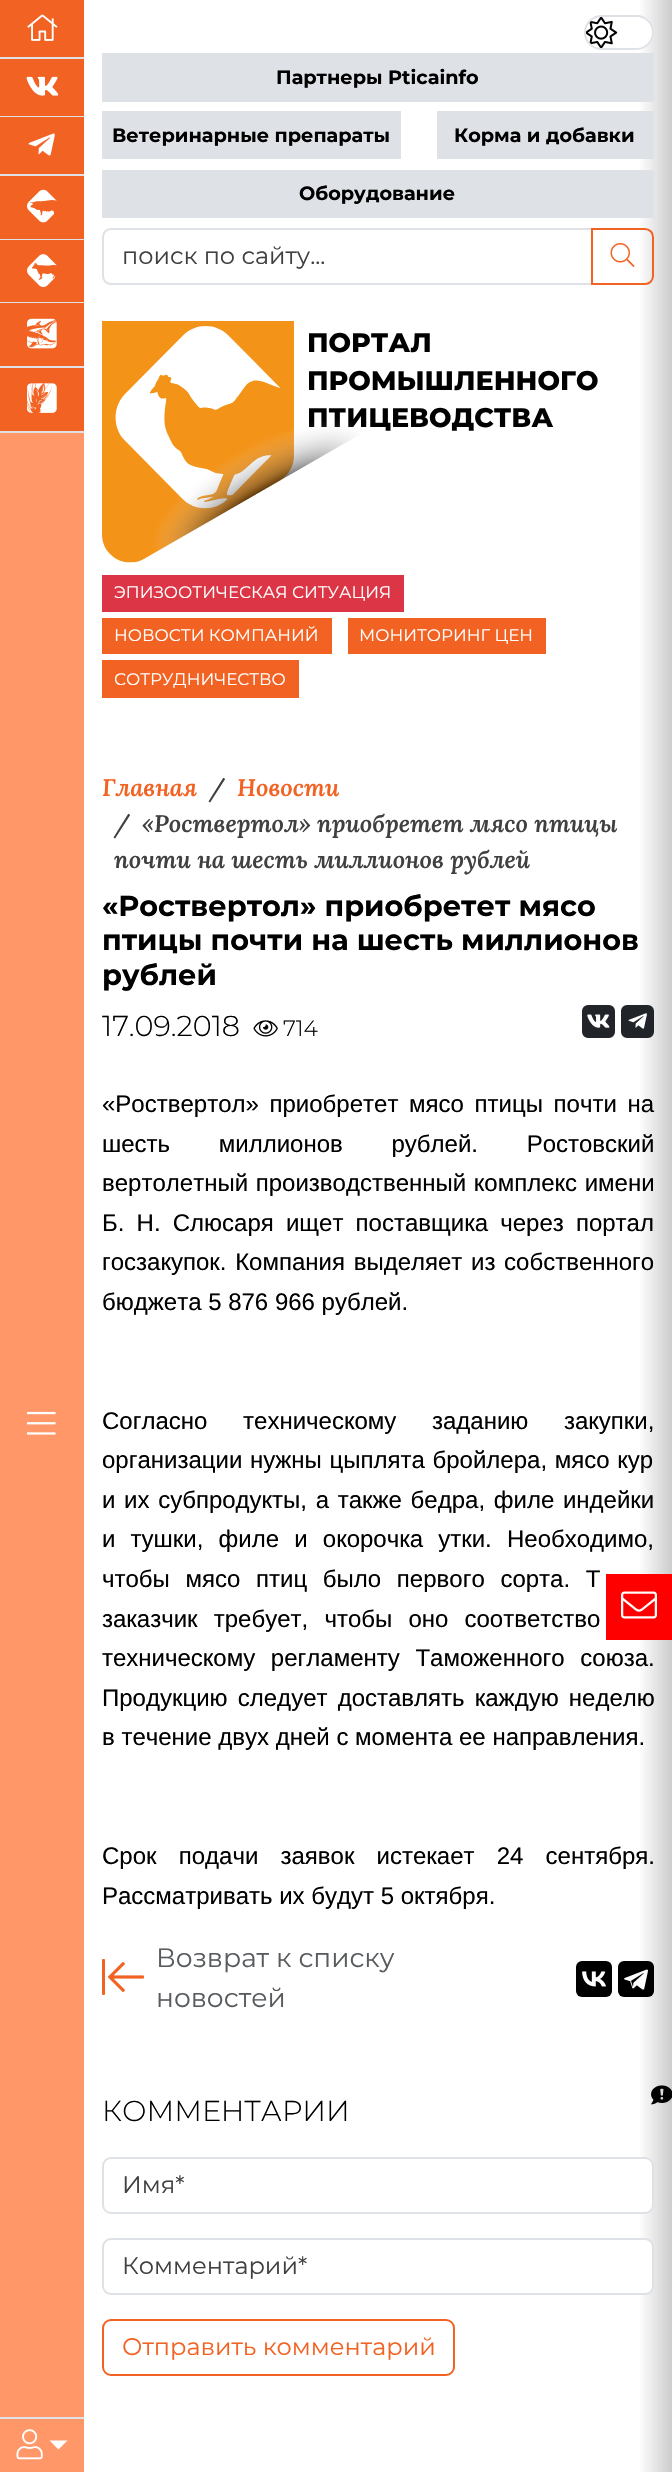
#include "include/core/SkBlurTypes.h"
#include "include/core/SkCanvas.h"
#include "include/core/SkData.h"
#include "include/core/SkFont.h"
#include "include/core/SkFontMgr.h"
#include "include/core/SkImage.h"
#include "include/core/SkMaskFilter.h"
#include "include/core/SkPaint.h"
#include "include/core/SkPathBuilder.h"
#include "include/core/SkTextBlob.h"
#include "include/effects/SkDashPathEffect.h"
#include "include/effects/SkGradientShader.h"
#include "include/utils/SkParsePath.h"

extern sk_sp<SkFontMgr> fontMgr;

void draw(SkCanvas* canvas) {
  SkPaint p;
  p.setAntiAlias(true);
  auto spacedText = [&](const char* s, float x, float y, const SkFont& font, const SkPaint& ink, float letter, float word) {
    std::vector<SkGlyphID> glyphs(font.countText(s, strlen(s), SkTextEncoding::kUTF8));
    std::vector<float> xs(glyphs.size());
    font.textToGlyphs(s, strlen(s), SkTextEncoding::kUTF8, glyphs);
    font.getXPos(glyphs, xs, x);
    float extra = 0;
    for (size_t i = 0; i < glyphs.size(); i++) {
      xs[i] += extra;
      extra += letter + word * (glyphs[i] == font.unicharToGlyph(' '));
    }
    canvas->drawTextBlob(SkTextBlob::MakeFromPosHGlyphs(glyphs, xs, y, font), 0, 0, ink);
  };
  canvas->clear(SK_ColorWHITE);
  {
    const SkColor colors[] = {SkColorSetRGB(204, 204, 204), SK_ColorWHITE, SK_ColorWHITE, SkColorSetRGB(204, 204, 204)};
    const float stops[] = {0, 0.12f, 0.95f, 1};
    const SkPoint ends[] = {{0, 1236}, {672, 1236}};
    p.setShader(SkGradientShader::MakeLinear(ends, colors, stops, 4, SkTileMode::kClamp));
    p.setAlpha(255);
  }
  canvas->drawRect(SkRect::MakeLTRB(640, 0, 672, 2472), p);
  p.setShader(nullptr);
  p.setColor(SkColorSetRGB(255, 151, 104));
  canvas->drawRect(SkRect::MakeLTRB(0, 433, 84, 2472), p);
  p.setColor(SkColorSetRGB(242, 98, 34));
  canvas->drawRect(SkRect::MakeLTRB(0, 0, 84, 57), p);
  p.setColor(SkColorSetRGB(222, 226, 230));
  canvas->drawRect(SkRect::MakeLTRB(0, 57, 84, 59), p);
  canvas->drawImageRect(SkImages::DeferredFromEncodedData(SkData::MakeFromFileName("images/1.png")), SkRect::MakeLTRB(27, 14, 58, 41), SkSamplingOptions());
  p.setColor(SkColorSetRGB(242, 98, 34));
  canvas->drawRect(SkRect::MakeLTRB(0, 59, 84, 116), p);
  p.setColor(SkColorSetRGB(222, 226, 230));
  canvas->drawRect(SkRect::MakeLTRB(0, 116, 84, 117), p);
  canvas->drawImageRect(SkImages::DeferredFromEncodedData(SkData::MakeFromFileName("images/2.png")), SkRect::MakeLTRB(26, 76, 59, 96), SkSamplingOptions());
  p.setColor(SkColorSetRGB(242, 98, 34));
  canvas->drawRect(SkRect::MakeLTRB(0, 117, 84, 174), p);
  p.setColor(SkColorSetRGB(222, 226, 230));
  canvas->drawRect(SkRect::MakeLTRB(0, 174, 84, 176), p);
  canvas->drawImageRect(SkImages::DeferredFromEncodedData(SkData::MakeFromFileName("images/3.png")), SkRect::MakeLTRB(28, 133, 55, 156), SkSamplingOptions());
  p.setColor(SkColorSetRGB(242, 98, 34));
  canvas->drawRect(SkRect::MakeLTRB(0, 176, 84, 239), p);
  p.setColor(SkColorSetRGB(222, 226, 230));
  canvas->drawRect(SkRect::MakeLTRB(0, 239, 84, 240), p);
  canvas->drawImageRect(SkImages::DeferredFromEncodedData(SkData::MakeFromFileName("images/4.png")), SkRect::MakeLTRB(27, 189, 57, 223), SkSamplingOptions());
  p.setColor(SkColorSetRGB(242, 98, 34));
  canvas->drawRect(SkRect::MakeLTRB(0, 240, 84, 302), p);
  p.setColor(SkColorSetRGB(222, 226, 230));
  canvas->drawRect(SkRect::MakeLTRB(0, 302, 84, 303), p);
  canvas->drawImageRect(SkImages::DeferredFromEncodedData(SkData::MakeFromFileName("images/5.png")), SkRect::MakeLTRB(27, 254, 57, 287), SkSamplingOptions());
  p.setColor(SkColorSetRGB(242, 98, 34));
  canvas->drawRect(SkRect::MakeLTRB(0, 303, 84, 366), p);
  p.setColor(SkColorSetRGB(222, 226, 230));
  canvas->drawRect(SkRect::MakeLTRB(0, 366, 84, 368), p);
  canvas->drawImageRect(SkImages::DeferredFromEncodedData(SkData::MakeFromFileName("images/6.png")), SkRect::MakeLTRB(27, 318, 57, 349), SkSamplingOptions());
  p.setColor(SkColorSetRGB(242, 98, 34));
  canvas->drawRect(SkRect::MakeLTRB(0, 368, 84, 431), p);
  p.setColor(SkColorSetRGB(222, 226, 230));
  canvas->drawRect(SkRect::MakeLTRB(0, 431, 84, 433), p);
  canvas->drawImageRect(SkImages::DeferredFromEncodedData(SkData::MakeFromFileName("images/7.png")), SkRect::MakeLTRB(27, 383, 57, 413), SkSamplingOptions());
  canvas->drawImageRect(SkImages::DeferredFromEncodedData(SkData::MakeFromFileName("images/8.png")), SkRect::MakeLTRB(27, 1411, 56, 1435), SkSamplingOptions());
  canvas->drawRect(SkRect::MakeLTRB(0, 2417, 84, 2419), p);
  canvas->drawImageRect(SkImages::DeferredFromEncodedData(SkData::MakeFromFileName("images/9.png")), SkRect::MakeLTRB(16, 2429, 43, 2460), SkSamplingOptions());
  p.setColor(SK_ColorWHITE);
  canvas->drawPath(SkPathBuilder().moveTo(49.5f, 2440.5f).lineTo(67.5f, 2440.5f).lineTo(58.5f, 2449.5f).close().detach(), p);
  canvas->drawRoundRect(SkRect::MakeLTRB(584, 15, 654, 50), 17.5f, 17.5f, p);
  canvas->drawImageRect(SkImages::DeferredFromEncodedData(SkData::MakeFromFileName("images/10.png")), SkRect::MakeLTRB(586, 17, 618, 48), SkSamplingOptions());
  p.setStyle(SkPaint::kStroke_Style);
  p.setStrokeWidth(2);
  p.setColor(SkColorSetRGB(222, 226, 230));
  canvas->drawRoundRect(SkRect::MakeLTRB(585, 16, 653, 49), 16.5f, 16.5f, p);
  p.setStyle(SkPaint::kFill_Style);
  canvas->drawRect(SkRect::MakeLTRB(102, 53, 654, 102), p);
  canvas->drawRect(SkRect::MakeLTRB(102, 111, 401, 159), p);
  canvas->drawRect(SkRect::MakeLTRB(437, 111, 654, 159), p);
  canvas->drawRect(SkRect::MakeLTRB(102, 170, 654, 218), p);
  p.setStyle(SkPaint::kStroke_Style);
  canvas->drawPath(SkPathBuilder().moveTo(111, 229).lineTo(592, 229).lineTo(592, 284).lineTo(111, 284).cubicTo(106.5f, 284, 103, 280.5f, 103, 276).lineTo(103, 237).cubicTo(103, 232.5f, 106.5f, 229, 111, 229).close().detach(), p);
  p.setColor(SkColorSetRGB(242, 98, 34));
  canvas->drawPath(SkPathBuilder().moveTo(592, 229).lineTo(645, 229).cubicTo(649.5f, 229, 653, 232.5f, 653, 237).lineTo(653, 276).cubicTo(653, 280.5f, 649.5f, 284, 645, 284).lineTo(592, 284).close().detach(), p);
  canvas->drawImageRect(SkImages::DeferredFromEncodedData(SkData::MakeFromFileName("images/11.png")), SkRect::MakeLTRB(610, 243, 635, 267), SkSamplingOptions());
  canvas->drawImageRect(SkImages::DeferredFromEncodedData(SkData::MakeFromFileName("images/12.png")), SkRect::MakeLTRB(102, 321, 598, 563), SkSamplingOptions());
  p.setStyle(SkPaint::kFill_Style);
  p.setColor(SkColorSetRGB(220, 53, 69));
  canvas->drawRect(SkRect::MakeLTRB(102, 575, 404, 612), p);
  p.setColor(SkColorSetRGB(242, 98, 34));
  canvas->drawRect(SkRect::MakeLTRB(102, 618, 332, 654), p);
  canvas->drawRect(SkRect::MakeLTRB(348, 618, 546, 654), p);
  canvas->drawRect(SkRect::MakeLTRB(102, 660, 299, 698), p);
  canvas->drawImageRect(SkImages::DeferredFromEncodedData(SkData::MakeFromFileName("images/13.png")), SkRect::MakeLTRB(253, 1020, 278, 1037), SkSamplingOptions());
  p.setColor(SkColorSetRGB(33, 37, 41));
  canvas->drawRoundRect(SkRect::MakeLTRB(583, 1006, 614, 1037), 5, 5, p);
  p.setStyle(SkPaint::kStroke_Style);
  canvas->drawRoundRect(SkRect::MakeLTRB(583, 1006, 614, 1037), 5, 5, p);
  canvas->drawImageRect(SkImages::DeferredFromEncodedData(SkData::MakeFromFileName("images/14.png")), SkRect::MakeLTRB(587, 1014, 610, 1028), SkSamplingOptions());
  p.setStyle(SkPaint::kFill_Style);
  canvas->drawRoundRect(SkRect::MakeLTRB(622, 1006, 653, 1037), 5, 5, p);
  p.setStyle(SkPaint::kStroke_Style);
  canvas->drawRoundRect(SkRect::MakeLTRB(622, 1006, 653, 1037), 5, 5, p);
  canvas->drawImageRect(SkImages::DeferredFromEncodedData(SkData::MakeFromFileName("images/15.png")), SkRect::MakeLTRB(628, 1013, 647, 1029), SkSamplingOptions());
  canvas->drawImageRect(SkImages::DeferredFromEncodedData(SkData::MakeFromFileName("images/16.png")), SkRect::MakeLTRB(102, 1959, 144, 1995), SkSamplingOptions());
  p.setStyle(SkPaint::kFill_Style);
  p.setColor(SK_ColorBLACK);
  canvas->drawRoundRect(SkRect::MakeLTRB(576, 1961, 612, 1997), 6, 6, p);
  canvas->drawImageRect(SkImages::DeferredFromEncodedData(SkData::MakeFromFileName("images/17.png")), SkRect::MakeLTRB(582, 1971, 606, 1987), SkSamplingOptions());
  canvas->drawRoundRect(SkRect::MakeLTRB(618, 1961, 654, 1997), 6, 6, p);
  canvas->drawImageRect(SkImages::DeferredFromEncodedData(SkData::MakeFromFileName("images/18.png")), SkRect::MakeLTRB(624, 1969, 648, 1990), SkSamplingOptions());
  canvas->drawImageRect(SkImages::DeferredFromEncodedData(SkData::MakeFromFileName("images/19.png")), SkRect::MakeLTRB(651, 2085, 672, 2105), SkSamplingOptions());
  p.setColor(SK_ColorWHITE);
  canvas->drawRoundRect(SkRect::MakeLTRB(103, 2158, 653, 2213), 8, 8, p);
  p.setStyle(SkPaint::kStroke_Style);
  p.setColor(SkColorSetRGB(222, 226, 230));
  canvas->drawRoundRect(SkRect::MakeLTRB(103, 2158, 653, 2213), 8, 8, p);
  p.setStyle(SkPaint::kFill_Style);
  p.setColor(SK_ColorWHITE);
  canvas->drawRoundRect(SkRect::MakeLTRB(103, 2239, 653, 2294), 8, 8, p);
  p.setStyle(SkPaint::kStroke_Style);
  p.setColor(SkColorSetRGB(222, 226, 230));
  canvas->drawRoundRect(SkRect::MakeLTRB(103, 2239, 653, 2294), 8, 8, p);
  p.setColor(SkColorSetRGB(242, 98, 34));
  canvas->drawRoundRect(SkRect::MakeLTRB(103, 2320, 454, 2375), 8, 8, p);
  p.setStyle(SkPaint::kFill_Style);
  p.setColor(SkColorSetRGB(255, 0, 0));
  canvas->drawRect(SkRect::MakeLTRB(606, 1574, 672, 1640), p);
  canvas->drawImageRect(SkImages::DeferredFromEncodedData(SkData::MakeFromFileName("images/20.png")), SkRect::MakeLTRB(621, 1591, 657, 1619), SkSamplingOptions());
  SkFont font1(fontMgr->matchFamilyStyle("Montserrat", SkFontStyle::Bold()), 19.25f);
  font1.setSubpixel(true);
  p.setColor(SK_ColorBLACK);
  canvas->drawString("Партнеры Pticainfo", 276, 84, font1, p);
  canvas->drawString("Ветеринарные препараты", 112, 142, font1, p);
  canvas->drawString("Корма и добавки", 454, 142, font1, p);
  canvas->drawString("Оборудование", 299, 200, font1, p);
  SkFont font2(fontMgr->matchFamilyStyle("Montserrat", SkFontStyle::Normal()), 24);
  font2.setSubpixel(true);
  p.setColor(SkColorSetRGB(64, 64, 64));
  canvas->drawString("поиск по сайту...", 122, 264, font2, p);
  SkFont font3(fontMgr->matchFamilyStyle("Montserrat", SkFontStyle::Normal()), 16.75f);
  font3.setSubpixel(true);
  p.setColor(SK_ColorWHITE);
  canvas->drawString("ЭПИЗООТИЧЕСКАЯ СИТУАЦИЯ", 114, 598, font3, p);
  canvas->drawString("НОВОСТИ КОМПАНИЙ", 114, 641, font3, p);
  canvas->drawString("МОНИТОРИНГ ЦЕН", 359, 641, font3, p);
  canvas->drawString("СОТРУДНИЧЕСТВО", 114, 685, font3, p);
  SkFont font4(fontMgr->matchFamilyStyle("Lora", SkFontStyle(600, SkFontStyle::kNormal_Width, SkFontStyle::kItalic_Slant)), 24);
  font4.setSubpixel(true);
  p.setColor(SkColorSetRGB(242, 98, 34));
  canvas->drawString("Главная", 102, 796, font4, p);
  p.setColor(SkColorSetRGB(64, 64, 64));
  canvas->drawString("/", 209, 796, font4, p);
  p.setColor(SkColorSetRGB(242, 98, 34));
  canvas->drawString("Новости", 237, 796, font4, p);
  p.setColor(SkColorSetRGB(64, 64, 64));
  canvas->drawString("/", 114, 832, font4, p);
  canvas->drawString("«Роствертол» приобретет мясо птицы", 142, 832, font4, p);
  canvas->drawString("почти на шесть миллионов рублей", 114, 868, font4, p);
  SkFont font5(fontMgr->matchFamilyStyle("Montserrat", SkFontStyle::Bold()), 28.75f);
  font5.setSubpixel(true);
  p.setColor(SK_ColorBLACK);
  canvas->drawString("«Роствертол» приобретет мясо", 102, 916, font5, p);
  canvas->drawString("птицы почти на шесть миллионов", 102, 950, font5, p);
  canvas->drawString("рублей", 102, 985, font5, p);
  SkFont font6(fontMgr->matchFamilyStyle("Montserrat", SkFontStyle(300, SkFontStyle::kNormal_Width, SkFontStyle::kUpright_Slant)), 28.75f);
  font6.setSubpixel(true);
  canvas->drawString("17.09.2018", 102, 1036, font6, p);
  SkFont font7(fontMgr->matchFamilyStyle("Montserrat", SkFontStyle(300, SkFontStyle::kNormal_Width, SkFontStyle::kUpright_Slant)), 22);
  font7.setSubpixel(true);
  canvas->drawString("714", 283, 1036, font7, p);
  SkFont font8(fontMgr->matchFamilyStyle("Liberation Sans", SkFontStyle::Normal()), 24);
  font8.setSubpixel(true);
  spacedText("«Роствертол» приобретет мясо птицы почти на", 102, 1112, font8, p, 0, 4);
  spacedText("шесть миллионов рублей. Ростовский", 102, 1152, font8, p, 0, 42);
  spacedText("вертолетный производственный комплекс имени", 102, 1191, font8, p, 0, 1);
  spacedText("Б. Н. Слюсаря ищет поставщика через портал", 102, 1231, font8, p, 0, 5.5f);
  spacedText("госзакупок. Компания выделяет из собственного", 102, 1270, font8, p, 0, 2);
  canvas->drawString("бюджета 5 876 966 рублей.", 102, 1310, font8, p);
  spacedText("Согласно техническому заданию закупки,", 102, 1429, font8, p, 0, 29);
  spacedText("организации нужны цыплята бройлера, мясо кур", 102, 1468, font8, p, 0, 1);
  spacedText("и их субпродукты, а также бедра, филе индейки", 102, 1508, font8, p, 0, 2);
  spacedText("и тушки, филе и окорочка утки. Необходимо,", 102, 1547, font8, p, 0, 8.5f);
  spacedText("чтобы мясо птиц было первого сорта. Т", 102, 1587, font8, p, 0, 9);
  spacedText("заказчик требует, чтобы оно соответство", 102, 1627, font8, p, 0, 9.5f);
  spacedText("техническому регламенту Таможенного союза.", 102, 1666, font8, p, 0, 9);
  spacedText("Продукцию следует доставлять каждую неделю", 102, 1706, font8, p, 0, 3.5f);
  canvas->drawString("в течение двух дней с момента ее направления.", 102, 1745, font8, p);
  spacedText("Срок подачи заявок истекает 24 сентября.", 102, 1864, font8, p, 0, 15.5f);
  canvas->drawString("Рассматривать их будут 5 октября.", 102, 1904, font8, p);
  SkFont font9(fontMgr->matchFamilyStyle("Montserrat", SkFontStyle::Normal()), 26.5f);
  font9.setSubpixel(true);
  p.setColor(SkColorSetRGB(89, 92, 95));
  canvas->drawString("Возврат к списку", 156, 1967, font9, p);
  canvas->drawString("новостей", 156, 2007, font9, p);
  p.setColor(SK_ColorBLACK);
  canvas->drawString("КОММЕНТАРИИ", 102, 2121, font6, p);
  p.setColor(SkColorSetRGB(64, 64, 64));
  canvas->drawString("Имя*", 122, 2193, font2, p);
  canvas->drawString("Комментарий*", 122, 2274, font2, p);
  p.setColor(SkColorSetRGB(242, 98, 34));
  canvas->drawString("Отправить комментарий", 122, 2355, font2, p);
}
